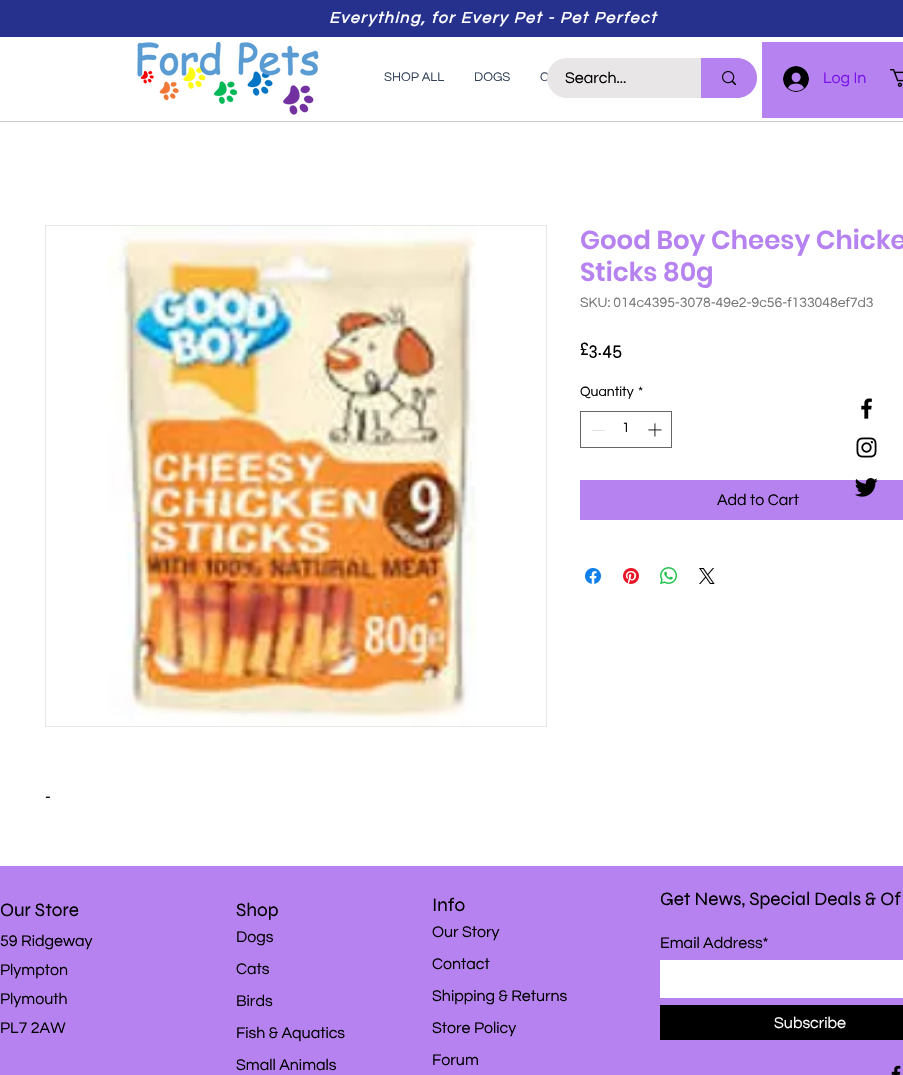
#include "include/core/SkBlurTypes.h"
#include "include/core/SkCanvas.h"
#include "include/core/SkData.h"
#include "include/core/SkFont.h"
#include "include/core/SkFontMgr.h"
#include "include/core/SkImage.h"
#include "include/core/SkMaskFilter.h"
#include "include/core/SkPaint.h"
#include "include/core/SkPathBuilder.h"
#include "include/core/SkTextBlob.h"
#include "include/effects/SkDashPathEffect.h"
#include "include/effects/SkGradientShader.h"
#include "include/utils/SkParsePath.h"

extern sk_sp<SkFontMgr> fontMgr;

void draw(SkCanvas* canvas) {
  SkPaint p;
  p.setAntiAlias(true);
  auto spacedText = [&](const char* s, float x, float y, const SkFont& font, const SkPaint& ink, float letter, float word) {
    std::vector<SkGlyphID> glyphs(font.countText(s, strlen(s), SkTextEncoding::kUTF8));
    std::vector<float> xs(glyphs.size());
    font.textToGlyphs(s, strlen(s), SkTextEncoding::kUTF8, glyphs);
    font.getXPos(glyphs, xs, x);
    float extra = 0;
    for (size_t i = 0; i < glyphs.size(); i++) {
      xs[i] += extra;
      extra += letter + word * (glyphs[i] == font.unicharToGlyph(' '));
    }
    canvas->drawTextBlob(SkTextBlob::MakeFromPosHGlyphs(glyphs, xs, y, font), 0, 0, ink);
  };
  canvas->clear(SK_ColorWHITE);
  p.setColor(SkColorSetRGB(37, 49, 141));
  canvas->drawRect(SkRect::MakeLTRB(0, 0, 903, 37), p);
  canvas->drawImageRect(SkImages::DeferredFromEncodedData(SkData::MakeFromFileName("images/1.png")), SkRect::MakeLTRB(137, 42, 319, 115), SkSamplingOptions());
  p.setColor(SkColorSetRGB(182, 130, 240));
  canvas->drawRect(SkRect::MakeLTRB(762, 42, 903, 118), p);
  canvas->drawImageRect(SkImages::DeferredFromEncodedData(SkData::MakeFromFileName("images/3.png")), SkRect::MakeLTRB(783, 66, 809, 92), SkSamplingOptions());
  canvas->drawImageRect(SkImages::DeferredFromEncodedData(SkData::MakeFromFileName("images/4.png")), SkRect::MakeLTRB(890, 69, 903, 87), SkSamplingOptions());
  p.setColor(SkColorSetRGB(199, 199, 199));
  canvas->drawRect(SkRect::MakeLTRB(0, 121, 903, 122), p);
  p.setStyle(SkPaint::kStroke_Style);
  p.setStrokeWidth(1);
  p.setColor(SkColorSetRGB(102, 102, 102));
  canvas->drawRect(SkRect::MakeLTRB(580.5f, 411.5f, 671.5f, 447.5f), p);
  p.setStyle(SkPaint::kFill_Style);
  p.setColor(SkColorSetRGB(227, 227, 227));
  canvas->drawRect(SkRect::MakeLTRB(592, 430, 605, 431), p);
  canvas->drawImageRect(SkImages::DeferredFromEncodedData(SkData::MakeFromFileName("images/5.png")), SkRect::MakeLTRB(648, 423, 662, 437), SkSamplingOptions());
  p.setColor(SkColorSetRGB(182, 130, 240));
  canvas->drawRect(SkRect::MakeLTRB(580, 480, 903, 520), p);
  canvas->drawImageRect(SkImages::DeferredFromEncodedData(SkData::MakeFromFileName("images/6.png")), SkRect::MakeLTRB(585, 568, 601, 584), SkSamplingOptions());
  canvas->drawImageRect(SkImages::DeferredFromEncodedData(SkData::MakeFromFileName("images/7.png")), SkRect::MakeLTRB(623, 568, 639, 584), SkSamplingOptions());
  canvas->drawImageRect(SkImages::DeferredFromEncodedData(SkData::MakeFromFileName("images/8.png")), SkRect::MakeLTRB(660, 567, 677, 584), SkSamplingOptions());
  canvas->drawImageRect(SkImages::DeferredFromEncodedData(SkData::MakeFromFileName("images/9.png")), SkRect::MakeLTRB(699, 568, 715, 584), SkSamplingOptions());
  p.setStyle(SkPaint::kStroke_Style);
  p.setColor(SkColorSetRGB(232, 230, 230));
  canvas->drawRect(SkRect::MakeLTRB(45.5f, 225.5f, 546.5f, 726.5f), p);
  canvas->drawImageRect(SkImages::DeferredFromEncodedData(SkData::MakeFromFileName("images/10.png")), SkRect::MakeLTRB(107, 226, 477, 726), SkSamplingOptions());
  canvas->drawImageRect(SkImages::DeferredFromEncodedData(SkData::MakeFromFileName("images/11.png")), SkRect::MakeLTRB(861, 398, 872, 419), SkSamplingOptions());
  canvas->drawImageRect(SkImages::DeferredFromEncodedData(SkData::MakeFromFileName("images/12.png")), SkRect::MakeLTRB(856, 437, 877, 458), SkSamplingOptions());
  canvas->drawImageRect(SkImages::DeferredFromEncodedData(SkData::MakeFromFileName("images/13.png")), SkRect::MakeLTRB(855, 477, 878, 497), SkSamplingOptions());
  p.setStyle(SkPaint::kFill_Style);
  p.setColor(SkColorSetRGB(182, 130, 240));
  canvas->drawRect(SkRect::MakeLTRB(0, 866, 903, 1075), p);
  p.setColor(SK_ColorWHITE);
  canvas->drawRect(SkRect::MakeLTRB(660, 960, 903, 998), p);
  p.setColor(SK_ColorBLACK);
  canvas->drawRect(SkRect::MakeLTRB(660, 1005, 903, 1040), p);
  canvas->drawImageRect(SkImages::DeferredFromEncodedData(SkData::MakeFromFileName("images/14.png")), SkRect::MakeLTRB(891, 1065, 901, 1075), SkSamplingOptions());
  SkFont font1(fontMgr->matchFamilyStyle("Questrial", SkFontStyle::BoldItalic()), 16);
  font1.setSubpixel(true);
  p.setColor(SK_ColorWHITE);
  spacedText("Everything, for Every Pet - Pet Perfect", 329, 23, font1, p, 1.6f, 0);
  SkFont font2(fontMgr->matchFamilyStyle("Questrial", SkFontStyle::Normal()), 13);
  font2.setSubpixel(true);
  p.setColor(SkColorSetRGB(50, 65, 88));
  canvas->drawString("SHOP ALL", 384, 81, font2, p);
  canvas->drawString("DOGS", 474, 81, font2, p);
  canvas->drawString("C", 540, 81, font2, p);
  p.setColor(SkColorSetRGB(232, 230, 230));
  canvas->drawRoundRect(SkRect::MakeLTRB(547, 58, 757, 98), 20, 20, p);
  SkFont font3(fontMgr->matchFamilyStyle("Questrial", SkFontStyle::Normal()), 16);
  font3.setSubpixel(true);
  p.setColor(SK_ColorBLACK);
  canvas->drawString("Search...", 565, 83, font3, p);
  p.setColor(SkColorSetRGB(182, 130, 240));
  canvas->drawPath(SkPathBuilder().moveTo(701, 58).lineTo(737, 58).cubicTo(748, 58, 757, 67, 757, 78).cubicTo(757, 89, 748, 98, 737, 98).lineTo(701, 98).close().detach(), p);
  canvas->drawImageRect(SkImages::DeferredFromEncodedData(SkData::MakeFromFileName("images/2.png")), SkRect::MakeLTRB(722, 71, 736, 85), SkSamplingOptions());
  p.setColor(SkColorSetRGB(121, 19, 232));
  canvas->drawString("Log In", 823, 83, font3, p);
  SkFont font4(fontMgr->matchFamilyStyle("Poppins", SkFontStyle(600, SkFontStyle::kNormal_Width, SkFontStyle::kUpright_Slant)), 26);
  font4.setSubpixel(true);
  p.setColor(SkColorSetRGB(182, 130, 240));
  canvas->drawString("Good Boy Cheesy Chicke", 580, 249, font4, p);
  canvas->drawString("Sticks 80g", 580, 281, font4, p);
  SkFont font5(fontMgr->matchFamilyStyle("Questrial", SkFontStyle::Normal()), 14);
  font5.setSubpixel(true);
  p.setColor(SkColorSetRGB(117, 117, 117));
  canvas->drawString("SKU: 014c4395-3078-49e2-9c56-f133048ef7d3", 580, 307, font5, p);
  SkFont font6(fontMgr->matchFamilyStyle("Syne", SkFontStyle::Normal()), 19);
  font6.setSubpixel(true);
  p.setColor(SK_ColorBLACK);
  canvas->drawString("£3.45", 580, 355, font6, p);
  canvas->drawString("Quantity", 580, 396, font5, p);
  canvas->drawString("*", 638, 396, font5, p);
  canvas->drawString("1", 622, 432, font5, p);
  canvas->drawString("Add to Cart", 717, 505, font3, p);
  canvas->drawString("-", 45, 802, font3, p);
  canvas->drawString("Our Store", 0, 916, font6, p);
  canvas->drawString("59 Ridgeway", 0, 946, font3, p);
  canvas->drawString("Plympton", 0, 975, font3, p);
  canvas->drawString("Plymouth", 0, 1004, font3, p);
  canvas->drawString("PL7 2AW", 0, 1033, font3, p);
  canvas->drawString("Shop", 236, 916, font6, p);
  canvas->drawString("Dogs", 236, 942, font3, p);
  canvas->drawString("Cats", 236, 974, font3, p);
  canvas->drawString("Birds", 236, 1006, font3, p);
  canvas->drawString("Fish & Aquatics", 236, 1038, font3, p);
  canvas->drawString("Small Animals", 236, 1070, font3, p);
  canvas->drawString("Info", 432, 911, font6, p);
  canvas->drawString("Our Story", 432, 937, font3, p);
  canvas->drawString("Contact", 432, 969, font3, p);
  canvas->drawString("Shipping & Returns", 432, 1001, font3, p);
  canvas->drawString("Store Policy", 432, 1033, font3, p);
  canvas->drawString("Forum", 432, 1065, font3, p);
  canvas->drawString("Get News, Special Deals & Of", 660, 905, font6, p);
  canvas->drawString("Email Address*", 660, 948, font3, p);
  p.setColor(SK_ColorWHITE);
  canvas->drawString("Subscribe", 774, 1028, font3, p);
}
